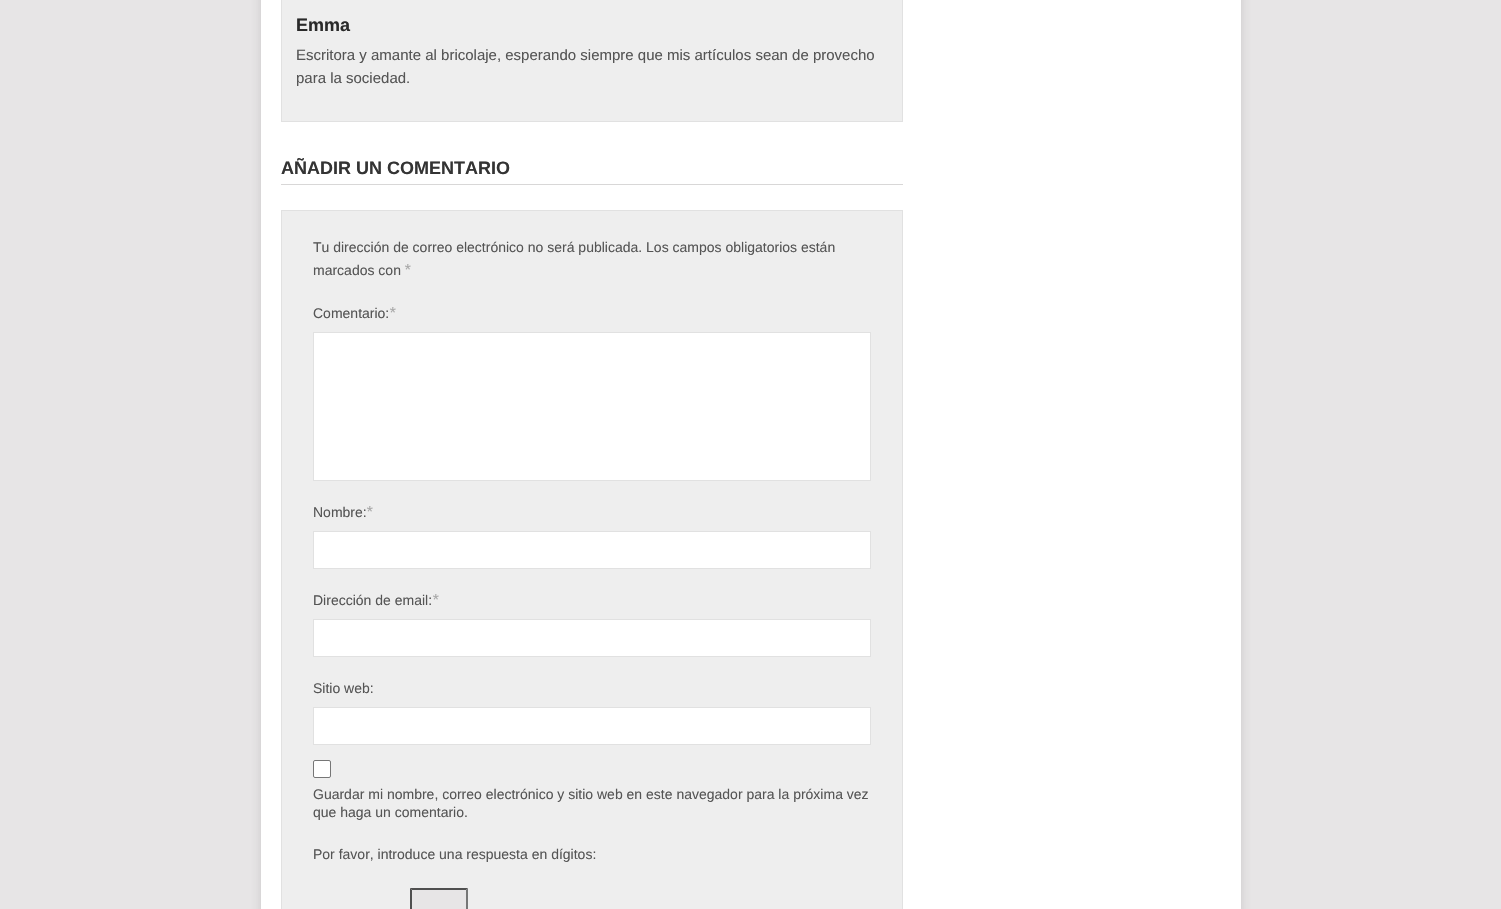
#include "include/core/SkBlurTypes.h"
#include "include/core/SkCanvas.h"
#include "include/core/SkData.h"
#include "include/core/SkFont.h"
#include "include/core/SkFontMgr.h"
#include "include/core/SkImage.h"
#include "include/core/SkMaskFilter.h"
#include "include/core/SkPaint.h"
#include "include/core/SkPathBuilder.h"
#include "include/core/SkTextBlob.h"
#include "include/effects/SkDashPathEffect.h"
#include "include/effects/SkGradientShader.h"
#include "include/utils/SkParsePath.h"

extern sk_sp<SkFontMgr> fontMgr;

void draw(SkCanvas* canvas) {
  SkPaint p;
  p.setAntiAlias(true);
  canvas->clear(SkColorSetRGB(231, 229, 230));
  p.setColor(SkColorSetARGB(43, 50, 50, 50));
  p.setMaskFilter(SkMaskFilter::MakeBlur(kNormal_SkBlurStyle, 5));
  canvas->drawRect(SkRect::MakeLTRB(261, -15, 1241, 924), p);
  p.setMaskFilter(nullptr);
  p.setColor(SK_ColorWHITE);
  canvas->drawRect(SkRect::MakeLTRB(261, 0, 1241, 909), p);
  p.setColor(SkColorSetRGB(238, 238, 238));
  canvas->drawRect(SkRect::MakeLTRB(281.5f, -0.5f, 902.5f, 121.5f), p);
  p.setStyle(SkPaint::kStroke_Style);
  p.setStrokeWidth(1);
  p.setColor(SkColorSetRGB(225, 225, 225));
  canvas->drawRect(SkRect::MakeLTRB(281.5f, -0.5f, 902.5f, 121.5f), p);
  p.setStyle(SkPaint::kFill_Style);
  p.setColor(SkColorSetRGB(216, 215, 215));
  canvas->drawRect(SkRect::MakeLTRB(281, 184, 903, 185), p);
  p.setColor(SkColorSetRGB(238, 238, 238));
  canvas->drawRect(SkRect::MakeLTRB(281.5f, 210.5f, 902.5f, 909.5f), p);
  p.setStyle(SkPaint::kStroke_Style);
  p.setColor(SkColorSetRGB(225, 225, 225));
  canvas->drawRect(SkRect::MakeLTRB(281.5f, 210.5f, 902.5f, 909.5f), p);
  p.setStyle(SkPaint::kFill_Style);
  p.setColor(SK_ColorWHITE);
  canvas->drawRect(SkRect::MakeLTRB(313.5f, 332.5f, 870.5f, 480.5f), p);
  p.setStyle(SkPaint::kStroke_Style);
  p.setColor(SkColorSetRGB(225, 225, 225));
  canvas->drawRect(SkRect::MakeLTRB(313.5f, 332.5f, 870.5f, 480.5f), p);
  p.setStyle(SkPaint::kFill_Style);
  p.setColor(SK_ColorWHITE);
  canvas->drawRect(SkRect::MakeLTRB(313.5f, 531.5f, 870.5f, 568.5f), p);
  p.setStyle(SkPaint::kStroke_Style);
  p.setColor(SkColorSetRGB(225, 225, 225));
  canvas->drawRect(SkRect::MakeLTRB(313.5f, 531.5f, 870.5f, 568.5f), p);
  p.setStyle(SkPaint::kFill_Style);
  p.setColor(SK_ColorWHITE);
  canvas->drawRect(SkRect::MakeLTRB(313.5f, 619.5f, 870.5f, 656.5f), p);
  p.setStyle(SkPaint::kStroke_Style);
  p.setColor(SkColorSetRGB(225, 225, 225));
  canvas->drawRect(SkRect::MakeLTRB(313.5f, 619.5f, 870.5f, 656.5f), p);
  p.setStyle(SkPaint::kFill_Style);
  p.setColor(SK_ColorWHITE);
  canvas->drawRect(SkRect::MakeLTRB(313.5f, 707.5f, 870.5f, 744.5f), p);
  p.setStyle(SkPaint::kStroke_Style);
  p.setColor(SkColorSetRGB(225, 225, 225));
  canvas->drawRect(SkRect::MakeLTRB(313.5f, 707.5f, 870.5f, 744.5f), p);
  p.setStyle(SkPaint::kFill_Style);
  p.setColor(SK_ColorWHITE);
  canvas->drawRoundRect(SkRect::MakeLTRB(313.5f, 760.5f, 330.5f, 777.5f), 1.5f, 1.5f, p);
  p.setStyle(SkPaint::kStroke_Style);
  p.setColor(SkColorSetRGB(118, 118, 118));
  canvas->drawRoundRect(SkRect::MakeLTRB(313.5f, 760.5f, 330.5f, 777.5f), 1.5f, 1.5f, p);
  p.setStyle(SkPaint::kFill_Style);
  p.setColor(SkColorSetRGB(231, 229, 230));
  canvas->drawRect(SkRect::MakeLTRB(410, 888, 468, 909), p);
  p.setColor(SkColorSetRGB(79, 79, 79));
  canvas->drawPath(SkPathBuilder().moveTo(410, 888).lineTo(468, 888).lineTo(466, 890).lineTo(412, 890).close().detach(), p);
  p.setColor(SkColorSetRGB(118, 118, 118));
  canvas->drawPath(SkPathBuilder().moveTo(468, 888).lineTo(468, 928).lineTo(466, 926).lineTo(466, 890).close().detach(), p);
  p.setColor(SkColorSetRGB(79, 79, 79));
  canvas->drawPath(SkPathBuilder().moveTo(410, 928).lineTo(410, 888).lineTo(412, 890).lineTo(412, 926).close().detach(), p);
  SkFont font1(fontMgr->matchFamilyStyle("Liberation Sans", SkFontStyle::Bold()), 18);
  font1.setSubpixel(true);
  p.setColor(SkColorSetRGB(42, 42, 42));
  canvas->drawString("Emma", 296, 31, font1, p);
  SkFont font2(fontMgr->matchFamilyStyle("Liberation Sans", SkFontStyle::Normal()), 15);
  font2.setSubpixel(true);
  p.setColor(SkColorSetRGB(85, 85, 85));
  canvas->drawString("Escritora y amante al bricolaje, esperando siempre que mis artículos sean de provecho", 296, 60, font2, p);
  canvas->drawString("para la sociedad.", 296, 83, font2, p);
  p.setColor(SkColorSetRGB(52, 52, 52));
  canvas->drawString("AÑADIR UN COMENTARIO", 281, 174, font1, p);
  SkFont font3(fontMgr->matchFamilyStyle("Liberation Sans", SkFontStyle::Normal()), 14);
  font3.setSubpixel(true);
  p.setColor(SkColorSetRGB(85, 85, 85));
  canvas->drawString("Tu dirección de correo electrónico no será publicada. Los campos obligatorios están", 313, 252, font3, p);
  canvas->drawString("marcados con", 313, 275, font3, p);
  SkFont font4(fontMgr->matchFamilyStyle("Liberation Sans", SkFontStyle::Italic()), 16);
  font4.setSubpixel(true);
  p.setColor(SkColorSetRGB(168, 168, 168));
  canvas->drawString("*", 404, 275, font4, p);
  p.setColor(SkColorSetRGB(85, 85, 85));
  canvas->drawString("Comentario:", 313, 318, font3, p);
  p.setColor(SkColorSetRGB(168, 168, 168));
  canvas->drawString("*", 389, 318, font4, p);
  p.setColor(SkColorSetRGB(85, 85, 85));
  canvas->drawString("Nombre:", 313, 517, font3, p);
  p.setColor(SkColorSetRGB(168, 168, 168));
  canvas->drawString("*", 366, 517, font4, p);
  p.setColor(SkColorSetRGB(85, 85, 85));
  canvas->drawString("Dirección de email:", 313, 605, font3, p);
  p.setColor(SkColorSetRGB(168, 168, 168));
  canvas->drawString("*", 432, 605, font4, p);
  p.setColor(SkColorSetRGB(85, 85, 85));
  canvas->drawString("Sitio web:", 313, 693, font3, p);
  canvas->drawString("Guardar mi nombre, correo electrónico y sitio web en este navegador para la próxima vez", 313, 799, font3, p);
  canvas->drawString("que haga un comentario.", 313, 817, font3, p);
  canvas->drawString("Por favor, introduce una respuesta en dígitos:", 313, 859, font3, p);
}
